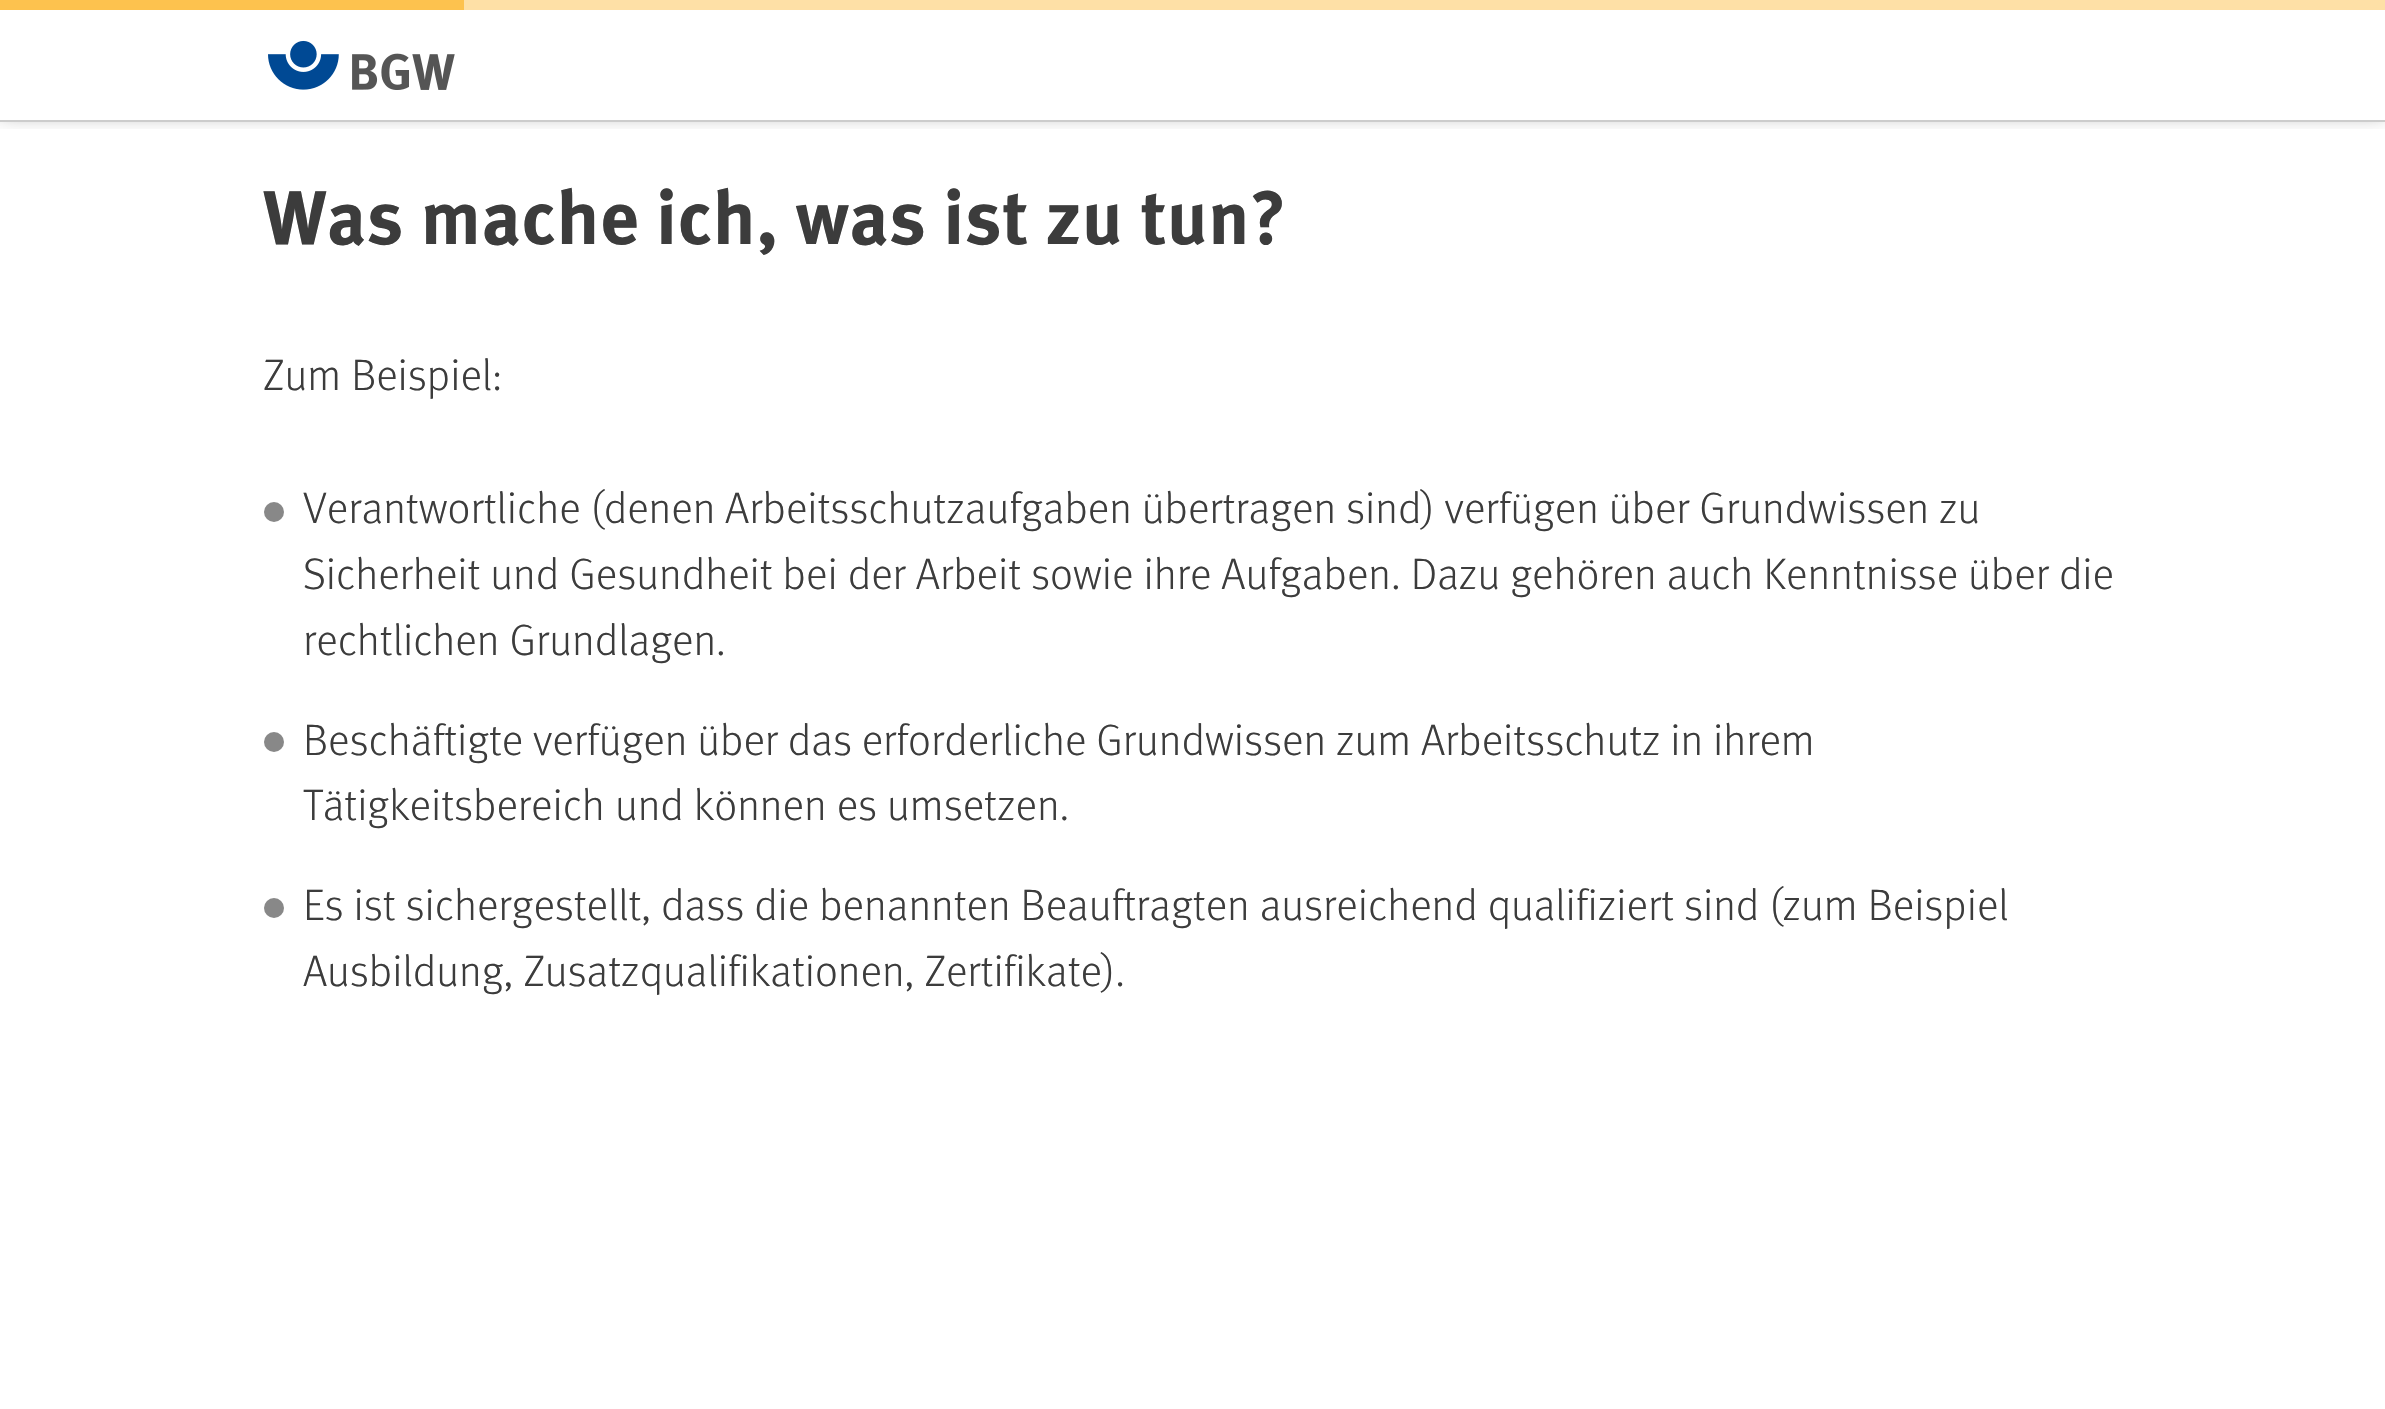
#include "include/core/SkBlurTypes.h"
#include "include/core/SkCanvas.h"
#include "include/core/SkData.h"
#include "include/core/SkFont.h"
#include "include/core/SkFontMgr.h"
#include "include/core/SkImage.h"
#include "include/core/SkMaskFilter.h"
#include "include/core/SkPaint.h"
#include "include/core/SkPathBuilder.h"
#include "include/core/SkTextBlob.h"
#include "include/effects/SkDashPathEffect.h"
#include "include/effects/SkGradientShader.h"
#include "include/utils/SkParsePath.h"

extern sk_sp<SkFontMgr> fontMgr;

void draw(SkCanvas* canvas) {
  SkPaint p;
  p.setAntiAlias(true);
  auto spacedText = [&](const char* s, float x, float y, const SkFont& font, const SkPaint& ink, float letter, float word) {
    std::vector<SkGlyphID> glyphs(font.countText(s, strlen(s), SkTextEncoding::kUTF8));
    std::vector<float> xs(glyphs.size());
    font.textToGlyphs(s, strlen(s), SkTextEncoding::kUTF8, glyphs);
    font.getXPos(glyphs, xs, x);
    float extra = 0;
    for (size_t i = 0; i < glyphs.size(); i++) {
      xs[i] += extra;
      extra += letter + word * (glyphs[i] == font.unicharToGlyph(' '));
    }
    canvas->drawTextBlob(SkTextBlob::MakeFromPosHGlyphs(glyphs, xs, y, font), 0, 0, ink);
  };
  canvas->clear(SK_ColorWHITE);
  canvas->save();
  canvas->clipRect(SkRect::MakeLTRB(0, 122, 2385, 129));
  p.setColor(SkColorSetARGB(128, 0, 0, 0));
  p.setMaskFilter(SkMaskFilter::MakeBlur(kNormal_SkBlurStyle, 10));
  canvas->drawRect(SkRect::MakeLTRB(0, -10, 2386, 112), p);
  p.setMaskFilter(nullptr);
  canvas->restore();
  p.setColor(SkColorSetRGB(254, 224, 166));
  canvas->drawRect(SkRect::MakeLTRB(464, 0, 2385, 10), p);
  p.setColor(SkColorSetRGB(204, 204, 204));
  canvas->drawRect(SkRect::MakeLTRB(0, 120, 2385, 122), p);
  p.setColor(SkColorSetRGB(253, 194, 78));
  canvas->drawRect(SkRect::MakeLTRB(0, 0, 464, 10), p);
  canvas->drawImageRect(SkImages::DeferredFromEncodedData(SkData::MakeFromFileName("images/1.png")), SkRect::MakeLTRB(268, 40, 455, 90), SkSamplingOptions());
  p.setColor(SkColorSetRGB(136, 136, 136));
  canvas->drawCircle(274, 512, 10, p);
  canvas->drawCircle(274, 742, 10, p);
  canvas->drawCircle(274, 908, 10, p);
  SkFont font1(fontMgr->matchFamilyStyle("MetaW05", SkFontStyle::Bold()), 75.75f);
  font1.setSubpixel(true);
  p.setColor(SkColorSetRGB(60, 60, 60));
  canvas->drawString("Was mache ich, was ist zu tun?", 263, 244, font1, p);
  SkFont font2(fontMgr->matchFamilyStyle("MetaW05", SkFontStyle(300, SkFontStyle::kNormal_Width, SkFontStyle::kUpright_Slant)), 44);
  font2.setSubpixel(true);
  canvas->drawString("Zum Beispiel:", 263, 390, font2, p);
  spacedText("Verantwortliche (denen Arbeitsschutzaufgaben übertragen sind) verfügen über Grundwissen zu", 303, 523, font2, p, 0, -0.25f);
  canvas->drawString("Sicherheit und Gesundheit bei der Arbeit sowie ihre Aufgaben. Dazu gehören auch Kenntnisse über die", 303, 589, font2, p);
  canvas->drawString("rechtlichen Grundlagen.", 303, 655, font2, p);
  spacedText("Beschäftigte verfügen über das erforderliche Grundwissen zum Arbeitsschutz in ihrem", 303, 755, font2, p, 0, -0.25f);
  canvas->drawString("Tätigkeitsbereich und können es umsetzen.", 303, 820, font2, p);
  spacedText("Es ist sichergestellt, dass die benannten Beauftragten ausreichend qualifiziert sind (zum Beispiel", 303, 920, font2, p, 0, -0.1f);
  canvas->drawString("Ausbildung, Zusatzqualifikationen, Zertifikate).", 303, 986, font2, p);
}
